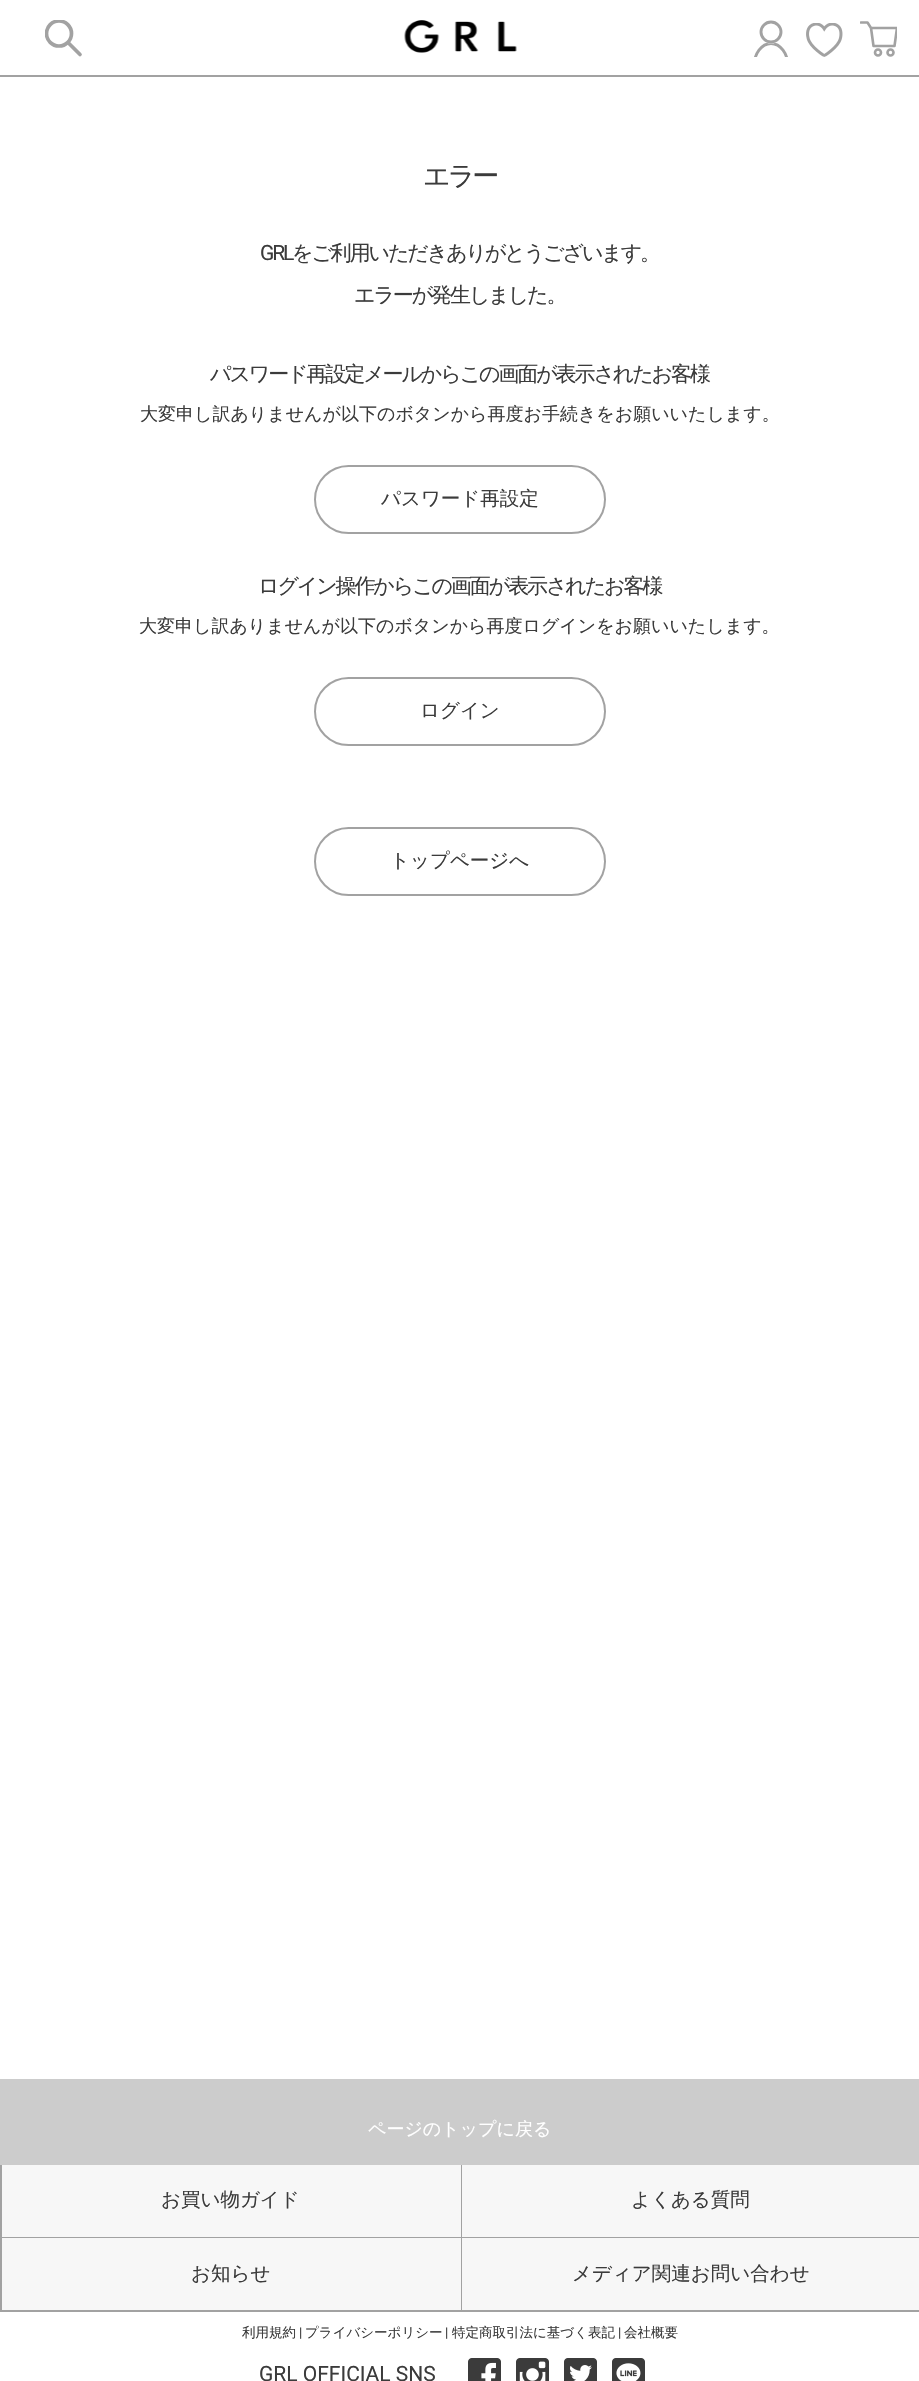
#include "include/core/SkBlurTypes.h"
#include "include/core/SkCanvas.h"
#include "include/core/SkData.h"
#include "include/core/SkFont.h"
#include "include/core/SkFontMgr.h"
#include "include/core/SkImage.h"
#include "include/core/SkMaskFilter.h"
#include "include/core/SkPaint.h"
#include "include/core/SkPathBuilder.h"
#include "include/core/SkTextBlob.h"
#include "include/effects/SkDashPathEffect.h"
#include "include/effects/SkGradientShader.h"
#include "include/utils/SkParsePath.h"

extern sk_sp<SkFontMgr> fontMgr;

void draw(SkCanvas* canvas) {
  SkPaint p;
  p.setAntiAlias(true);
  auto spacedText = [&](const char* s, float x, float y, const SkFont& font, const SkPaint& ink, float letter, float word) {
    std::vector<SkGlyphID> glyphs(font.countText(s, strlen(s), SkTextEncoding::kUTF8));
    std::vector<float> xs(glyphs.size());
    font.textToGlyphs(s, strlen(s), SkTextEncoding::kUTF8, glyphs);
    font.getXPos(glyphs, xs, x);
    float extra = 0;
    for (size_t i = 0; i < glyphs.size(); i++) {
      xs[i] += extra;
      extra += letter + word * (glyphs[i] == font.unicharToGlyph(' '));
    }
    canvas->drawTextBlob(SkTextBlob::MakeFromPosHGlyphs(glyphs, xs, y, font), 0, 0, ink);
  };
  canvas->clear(SK_ColorWHITE);
  p.setColor(SkColorSetRGB(162, 162, 162));
  canvas->drawRect(SkRect::MakeLTRB(0, 75, 919, 77), p);
  canvas->save();
  canvas->clipRect(SkRect::MakeLTRB(45, 20, 83, 57));
  p.setStyle(SkPaint::kStroke_Style);
  p.setStrokeWidth(3.7f);
  canvas->drawCircle(59, 33.5f, 12.5f, p);
  canvas->restore();
  p.setStrokeCap(SkPaint::kRound_Cap);
  canvas->drawPath(SkPathBuilder().moveTo(69, 43.5f).lineTo(80, 54.5f).detach(), p);
  canvas->drawImageRect(SkImages::DeferredFromEncodedData(SkData::MakeFromFileName("images/1.png")), SkRect::MakeLTRB(404, 20, 517, 53), SkSamplingOptions());
  canvas->save();
  canvas->clipPath(SkPathBuilder().moveTo(742.5f, 15).lineTo(799.5f, 15).lineTo(799.5f, 57).lineTo(742.5f, 57).close().detach(), true);
  p.setStrokeWidth(2.9f);
  p.setStrokeCap(SkPaint::kButt_Cap);
  canvas->drawOval(SkRect::MakeLTRB(754, 43.5f, 788, 89.5f), p);
  canvas->restore();
  p.setStyle(SkPaint::kFill_Style);
  p.setColor(SK_ColorWHITE);
  canvas->drawCircle(771, 32, 11.5f, p);
  p.setStyle(SkPaint::kStroke_Style);
  p.setColor(SkColorSetRGB(162, 162, 162));
  canvas->drawCircle(771, 32, 10, p);
  canvas->drawImageRect(SkImages::DeferredFromEncodedData(SkData::MakeFromFileName("images/2.png")), SkRect::MakeLTRB(806, 23, 843, 57), SkSamplingOptions());
  p.setStrokeWidth(2.6f);
  canvas->drawCircle(878, 52.5f, 3, p);
  canvas->drawCircle(890.5f, 52.5f, 3, p);
  canvas->save();
  canvas->clipRect(SkRect::MakeLTRB(860, 21, 897, 57));
  p.setStrokeCap(SkPaint::kRound_Cap);
  p.setStrokeJoin(SkPaint::kRound_Join);
  canvas->drawPath(SkPathBuilder().moveTo(861, 22.5f).lineTo(867.5f, 22.5f).lineTo(871, 28).lineTo(873.5f, 46).lineTo(894.5f, 46).lineTo(897, 28).lineTo(871, 28).detach(), p);
  canvas->restore();
  p.setStrokeWidth(2);
  p.setStrokeCap(SkPaint::kButt_Cap);
  p.setStrokeJoin(SkPaint::kMiter_Join);
  canvas->drawRoundRect(SkRect::MakeLTRB(315, 466, 605, 533), 33.5f, 33.5f, p);
  canvas->drawRoundRect(SkRect::MakeLTRB(315, 678, 605, 745), 33.5f, 33.5f, p);
  canvas->drawRoundRect(SkRect::MakeLTRB(315, 828, 605, 895), 33.5f, 33.5f, p);
  p.setStyle(SkPaint::kFill_Style);
  p.setColor(SkColorSetRGB(204, 204, 204));
  canvas->drawRect(SkRect::MakeLTRB(0, 2079, 919, 2165), p);
  p.setColor(SkColorSetRGB(162, 162, 162));
  canvas->drawRect(SkRect::MakeLTRB(0, 2237, 919, 2238), p);
  canvas->drawRect(SkRect::MakeLTRB(0, 2165, 2, 2238), p);
  p.setColor(SkColorSetRGB(247, 247, 247));
  canvas->drawRect(SkRect::MakeLTRB(2, 2165, 461, 2237), p);
  p.setColor(SkColorSetRGB(162, 162, 162));
  canvas->drawRect(SkRect::MakeLTRB(461, 2165, 463, 2238), p);
  p.setColor(SkColorSetRGB(247, 247, 247));
  canvas->drawRect(SkRect::MakeLTRB(462, 2165, 919, 2237), p);
  p.setColor(SkColorSetRGB(162, 162, 162));
  canvas->drawRect(SkRect::MakeLTRB(0, 2310, 919, 2312), p);
  canvas->drawRect(SkRect::MakeLTRB(0, 2238, 2, 2312), p);
  p.setColor(SkColorSetRGB(247, 247, 247));
  canvas->drawRect(SkRect::MakeLTRB(2, 2238, 461, 2310), p);
  p.setColor(SkColorSetRGB(162, 162, 162));
  canvas->drawRect(SkRect::MakeLTRB(461, 2238, 463, 2312), p);
  p.setColor(SkColorSetRGB(247, 247, 247));
  canvas->drawRect(SkRect::MakeLTRB(462, 2238, 919, 2310), p);
  canvas->drawImageRect(SkImages::DeferredFromEncodedData(SkData::MakeFromFileName("images/3.png")), SkRect::MakeLTRB(468, 2358, 501, 2381), SkSamplingOptions());
  canvas->drawImageRect(SkImages::DeferredFromEncodedData(SkData::MakeFromFileName("images/4.png")), SkRect::MakeLTRB(516, 2358, 549, 2381), SkSamplingOptions());
  canvas->drawImageRect(SkImages::DeferredFromEncodedData(SkData::MakeFromFileName("images/5.png")), SkRect::MakeLTRB(564, 2358, 597, 2381), SkSamplingOptions());
  canvas->drawImageRect(SkImages::DeferredFromEncodedData(SkData::MakeFromFileName("images/6.png")), SkRect::MakeLTRB(612, 2358, 645, 2381), SkSamplingOptions());
  SkFont font1(fontMgr->matchFamilyStyle("WenQuanYi Zen Hei", SkFontStyle(500, SkFontStyle::kNormal_Width, SkFontStyle::kUpright_Slant)), 27);
  font1.setSubpixel(true);
  p.setColor(SkColorSetRGB(59, 59, 59));
  spacedText("エラー", 423, 185, font1, p, -3, 0);
  SkFont font2(fontMgr->matchFamilyStyle("Roboto", SkFontStyle::Normal()), 21);
  font2.setSubpixel(true);
  spacedText("GRL", 260, 260, font2, p, -2.1f, 0);
  SkFont font3(fontMgr->matchFamilyStyle("WenQuanYi Zen Hei", SkFontStyle(500, SkFontStyle::kNormal_Width, SkFontStyle::kUpright_Slant)), 21);
  font3.setSubpixel(true);
  spacedText("をご利用いただきありがとうございます。", 292, 260, font3, p, -2.1f, 0);
  spacedText("エラーが発生しました。", 354, 302, font3, p, -2.1f, 0);
  spacedText("パスワード再設定メールからこの画面が表示されたお客様", 210, 381, font3, p, -2.1f, 0);
  SkFont font4(fontMgr->matchFamilyStyle("WenQuanYi Zen Hei", SkFontStyle(500, SkFontStyle::kNormal_Width, SkFontStyle::kUpright_Slant)), 18);
  font4.setSubpixel(true);
  canvas->drawString("大変申し訳ありませんが以下のボタンから再度お手続きをお願いいたします。", 140, 420, font4, p);
  SkFont font5(fontMgr->matchFamilyStyle("WenQuanYi Zen Hei", SkFontStyle(500, SkFontStyle::kNormal_Width, SkFontStyle::kUpright_Slant)), 19.5f);
  font5.setSubpixel(true);
  canvas->drawString("パスワード再設定", 381, 505, font5, p);
  spacedText("ログイン操作からこの画面が表示されたお客様", 258, 593, font3, p, -2.1f, 0);
  canvas->drawString("大変申し訳ありませんが以下のボタンから再度ログインをお願いいたします。", 139, 632, font4, p);
  canvas->drawString("ログイン", 420, 717, font5, p);
  canvas->drawString("トップページへ", 390, 867, font5, p);
  p.setColor(SK_ColorWHITE);
  canvas->drawString("ページのトップに戻る", 368, 2135, font4, p);
  p.setColor(SkColorSetRGB(59, 59, 59));
  canvas->drawString("お買い物ガイド", 161, 2206, font5, p);
  canvas->drawString("よくある質問", 631, 2206, font5, p);
  canvas->drawString("お知らせ", 191, 2280, font5, p);
  canvas->drawString("メディア関連お問い合わせ", 572, 2280, font5, p);
  SkFont font6(fontMgr->matchFamilyStyle("WenQuanYi Zen Hei", SkFontStyle(500, SkFontStyle::kNormal_Width, SkFontStyle::kUpright_Slant)), 13.5f);
  font6.setSubpixel(true);
  canvas->drawString("利用規約", 242, 2337, font6, p);
  SkFont font7(fontMgr->matchFamilyStyle("Roboto", SkFontStyle::Normal()), 13.5f);
  font7.setSubpixel(true);
  canvas->drawString("|", 299, 2337, font7, p);
  canvas->drawString("プライバシーポリシー", 305, 2337, font6, p);
  canvas->drawString("|", 445, 2337, font7, p);
  canvas->drawString("特定商取引法に基づく表記", 452, 2337, font6, p);
  canvas->drawString("|", 618, 2337, font7, p);
  canvas->drawString("会社概要", 624, 2337, font6, p);
  canvas->drawString("GRL OFFICIAL SNS", 259, 2381, font2, p);
}
